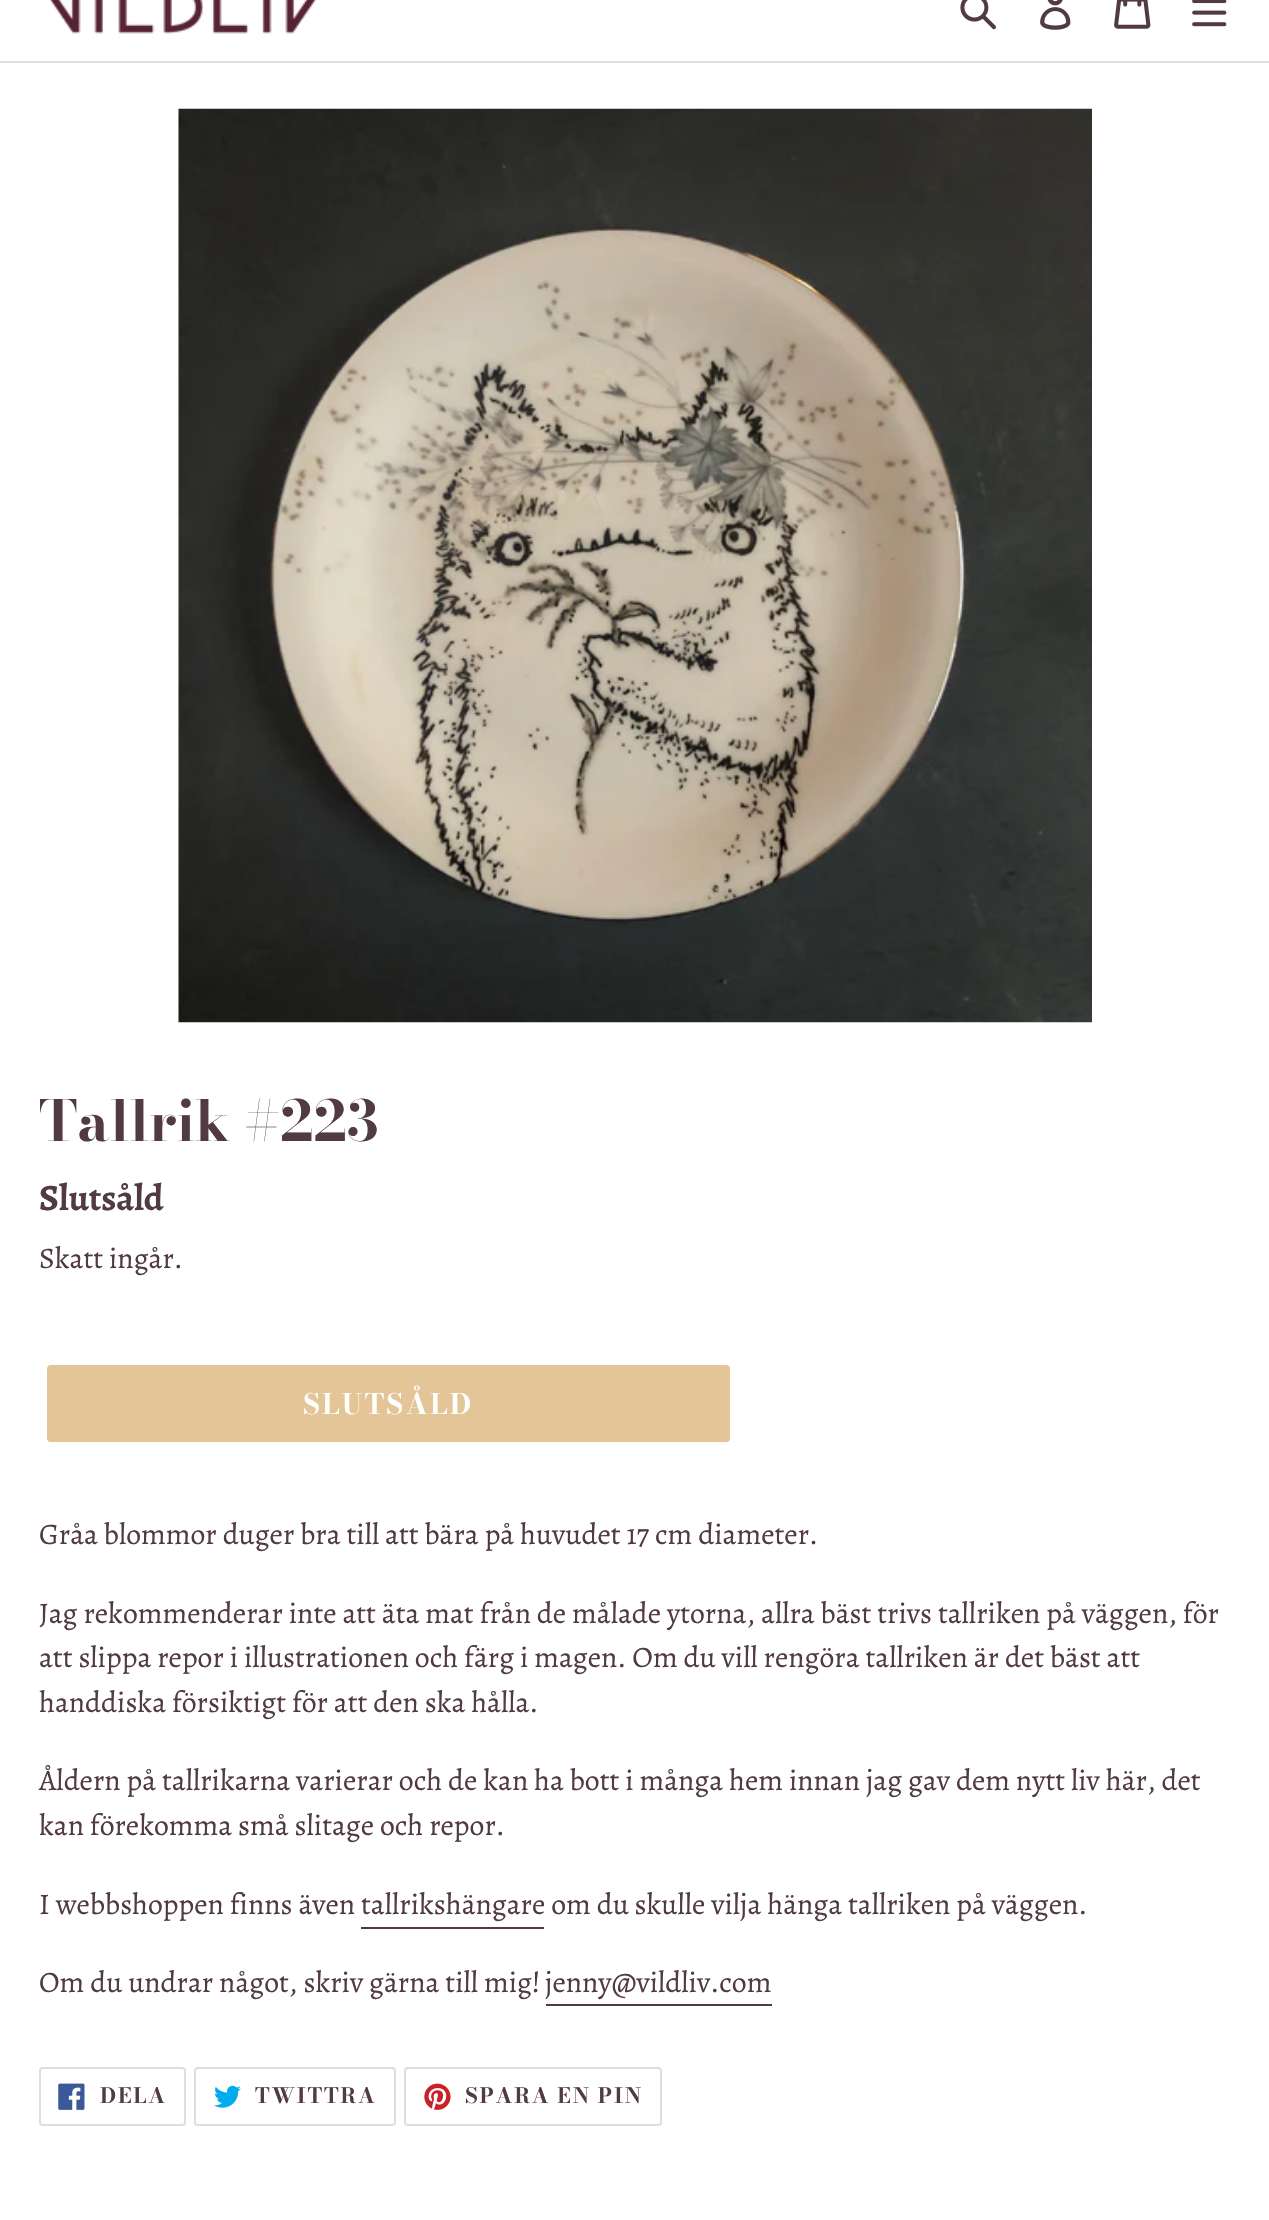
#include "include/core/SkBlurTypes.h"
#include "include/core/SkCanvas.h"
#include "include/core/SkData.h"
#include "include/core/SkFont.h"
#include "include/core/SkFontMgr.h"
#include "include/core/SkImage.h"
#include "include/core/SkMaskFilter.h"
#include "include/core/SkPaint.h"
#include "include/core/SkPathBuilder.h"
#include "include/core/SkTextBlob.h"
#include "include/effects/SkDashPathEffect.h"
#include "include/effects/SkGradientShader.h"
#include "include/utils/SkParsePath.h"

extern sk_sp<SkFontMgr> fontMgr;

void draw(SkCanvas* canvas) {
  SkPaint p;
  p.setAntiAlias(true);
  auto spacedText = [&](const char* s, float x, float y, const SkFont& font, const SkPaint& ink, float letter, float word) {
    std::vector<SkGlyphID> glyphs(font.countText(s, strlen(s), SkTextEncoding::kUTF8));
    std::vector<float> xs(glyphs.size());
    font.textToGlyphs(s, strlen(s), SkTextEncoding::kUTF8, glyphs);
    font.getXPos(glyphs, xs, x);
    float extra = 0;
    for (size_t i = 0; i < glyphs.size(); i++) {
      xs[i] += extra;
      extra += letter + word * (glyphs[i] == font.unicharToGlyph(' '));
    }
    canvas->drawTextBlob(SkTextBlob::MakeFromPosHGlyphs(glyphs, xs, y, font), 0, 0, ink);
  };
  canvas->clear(SK_ColorWHITE);
  p.setColor(SkColorSetRGB(222, 222, 222));
  canvas->drawRect(SkRect::MakeLTRB(0, 61, 1269, 63), p);
  canvas->drawImageRect(SkImages::DeferredFromEncodedData(SkData::MakeFromFileName("images/1.png")), SkRect::MakeLTRB(49, 0, 317, 34), SkSamplingOptions());
  canvas->drawImageRect(SkImages::DeferredFromEncodedData(SkData::MakeFromFileName("images/2.png")), SkRect::MakeLTRB(960, 0, 996, 30), SkSamplingOptions());
  canvas->drawImageRect(SkImages::DeferredFromEncodedData(SkData::MakeFromFileName("images/3.png")), SkRect::MakeLTRB(1040, 0, 1071, 30), SkSamplingOptions());
  canvas->drawImageRect(SkImages::DeferredFromEncodedData(SkData::MakeFromFileName("images/4.png")), SkRect::MakeLTRB(1114, 0, 1151, 29), SkSamplingOptions());
  canvas->drawImageRect(SkImages::DeferredFromEncodedData(SkData::MakeFromFileName("images/5.png")), SkRect::MakeLTRB(1192, 0, 1227, 27), SkSamplingOptions());
  canvas->drawImageRect(SkImages::DeferredFromEncodedData(SkData::MakeFromFileName("images/6.png")), SkRect::MakeLTRB(178, 108, 1092, 1023), SkSamplingOptions());
  p.setColor(SkColorSetRGB(227, 197, 151));
  canvas->drawRoundRect(SkRect::MakeLTRB(47, 1365, 730, 1442), 4, 4, p);
  p.setColor(SkColorSetRGB(81, 58, 67));
  canvas->drawRect(SkRect::MakeLTRB(361, 1927, 544, 1929), p);
  canvas->drawRect(SkRect::MakeLTRB(546, 2004, 772, 2006), p);
  p.setStyle(SkPaint::kStroke_Style);
  p.setStrokeWidth(2);
  p.setColor(SkColorSetRGB(222, 222, 222));
  canvas->drawRoundRect(SkRect::MakeLTRB(40, 2068, 185, 2125), 3, 3, p);
  canvas->drawImageRect(SkImages::DeferredFromEncodedData(SkData::MakeFromFileName("images/7.png")), SkRect::MakeLTRB(58, 2083, 85, 2110), SkSamplingOptions());
  canvas->drawRoundRect(SkRect::MakeLTRB(195, 2068, 395, 2125), 3, 3, p);
  canvas->drawImageRect(SkImages::DeferredFromEncodedData(SkData::MakeFromFileName("images/8.png")), SkRect::MakeLTRB(214, 2085, 241, 2108), SkSamplingOptions());
  canvas->drawRoundRect(SkRect::MakeLTRB(405, 2068, 661, 2125), 3, 3, p);
  canvas->drawImageRect(SkImages::DeferredFromEncodedData(SkData::MakeFromFileName("images/9.png")), SkRect::MakeLTRB(424, 2083, 451, 2110), SkSamplingOptions());
  SkFont font1(fontMgr->matchFamilyStyle("Bodoni Moda", SkFontStyle::Bold()), 56);
  font1.setSubpixel(true);
  p.setStyle(SkPaint::kFill_Style);
  p.setColor(SkColorSetRGB(81, 58, 67));
  canvas->drawString("Tallrik #223", 39, 1141, font1, p);
  SkFont font2(fontMgr->matchFamilyStyle("Alegreya", SkFontStyle::Bold()), 37);
  font2.setSubpixel(true);
  canvas->drawString("Slutsåld", 39, 1210, font2, p);
  SkFont font3(fontMgr->matchFamilyStyle("Alegreya", SkFontStyle::Normal()), 29.75f);
  font3.setSubpixel(true);
  canvas->drawString("Skatt ingår.", 39, 1268, font3, p);
  SkFont font4(fontMgr->matchFamilyStyle("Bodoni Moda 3", SkFontStyle::Bold()), 28);
  font4.setSubpixel(true);
  p.setColor(SK_ColorWHITE);
  spacedText("SLUTSÅLD", 303, 1414, font4, p, 2.25f, 0);
  p.setColor(SkColorSetRGB(81, 58, 67));
  canvas->drawString("Gråa blommor duger bra till att bära på huvudet 17 cm diameter.", 39, 1544, font3, p);
  canvas->drawString("Jag rekommenderar inte att äta mat från de målade ytorna, allra bäst trivs tallriken på väggen, för", 39, 1623, font3, p);
  canvas->drawString("att slippa repor i illustrationen och färg i magen. Om du vill rengöra tallriken är det bäst att", 39, 1667, font3, p);
  canvas->drawString("handdiska försiktigt för att den ska hålla.", 39, 1712, font3, p);
  canvas->drawString("Åldern på tallrikarna varierar och de kan ha bott i många hem innan jag gav dem nytt liv här, det", 39, 1790, font3, p);
  canvas->drawString("kan förekomma små slitage och repor.", 39, 1835, font3, p);
  canvas->drawString("I webbshoppen finns även tallrikshängare om du skulle vilja hänga tallriken på väggen.", 39, 1914, font3, p);
  canvas->drawString("Om du undrar något, skriv gärna till mig!", 39, 1992, font3, p);
  canvas->drawString("jenny@vildliv.com", 545, 1992, font3, p);
  SkFont font5(fontMgr->matchFamilyStyle("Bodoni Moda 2", SkFontStyle::Bold()), 21);
  font5.setSubpixel(true);
  spacedText("DELA", 100, 2103, font5, p, 1.75f, 0);
  spacedText("TWITTRA", 255, 2103, font5, p, 1.75f, 0);
  spacedText("SPARA EN PIN", 465, 2103, font5, p, 1.75f, 0);
}
